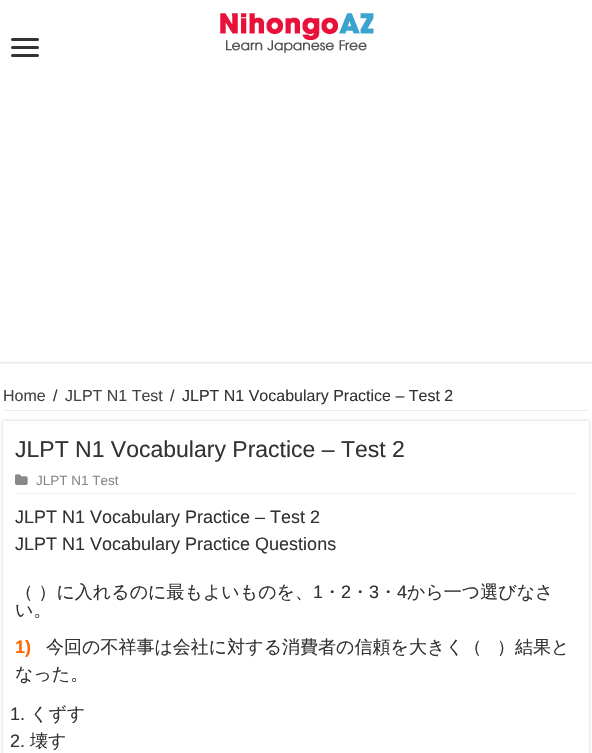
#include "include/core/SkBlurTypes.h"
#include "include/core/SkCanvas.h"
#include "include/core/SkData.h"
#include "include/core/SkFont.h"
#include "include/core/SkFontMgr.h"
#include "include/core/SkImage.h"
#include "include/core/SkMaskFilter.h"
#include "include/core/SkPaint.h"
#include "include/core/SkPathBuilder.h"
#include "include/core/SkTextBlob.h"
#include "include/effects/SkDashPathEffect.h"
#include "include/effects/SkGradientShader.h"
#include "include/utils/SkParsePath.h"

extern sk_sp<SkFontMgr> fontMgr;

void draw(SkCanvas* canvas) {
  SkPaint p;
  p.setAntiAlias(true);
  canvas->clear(SK_ColorWHITE);
  canvas->save();
  canvas->clipRect(SkRect::MakeLTRB(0, 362, 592, 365));
  p.setColor(SkColorSetRGB(202, 202, 202));
  p.setMaskFilter(SkMaskFilter::MakeBlur(kNormal_SkBlurStyle, 1.5f));
  canvas->drawRect(SkRect::MakeLTRB(0, 0, 592, 362), p);
  p.setMaskFilter(nullptr);
  canvas->restore();
  p.setColor(SkColorSetRGB(51, 51, 51));
  canvas->drawRoundRect(SkRect::MakeLTRB(11, 38, 39, 41), 1.5f, 1.5f, p);
  canvas->drawRoundRect(SkRect::MakeLTRB(11, 46, 39, 49), 1.5f, 1.5f, p);
  canvas->drawRoundRect(SkRect::MakeLTRB(11, 54, 39, 57), 1.5f, 1.5f, p);
  canvas->drawImageRect(SkImages::DeferredFromEncodedData(SkData::MakeFromFileName("images/1.png")), SkRect::MakeLTRB(220, 13, 374, 53), SkSamplingOptions());
  p.setColor(SkColorSetRGB(238, 238, 238));
  canvas->drawRect(SkRect::MakeLTRB(3, 410, 589, 411), p);
  canvas->save();
  canvas->clipPath(SkPathBuilder(SkPathFillType::kEvenOdd).moveTo(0, 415).lineTo(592, 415).lineTo(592, 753).lineTo(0, 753).close().moveTo(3, 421).lineTo(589, 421).lineTo(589, 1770).lineTo(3, 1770).close().detach(), true);
  p.setColor(SkColorSetRGB(202, 202, 202));
  p.setMaskFilter(SkMaskFilter::MakeBlur(kNormal_SkBlurStyle, 1.5f));
  canvas->drawRect(SkRect::MakeLTRB(3, 421, 589, 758), p);
  p.setMaskFilter(nullptr);
  canvas->restore();
  p.setColor(SkColorSetRGB(242, 242, 242));
  canvas->drawRect(SkRect::MakeLTRB(15, 493, 577, 494), p);
  canvas->drawImageRect(SkImages::DeferredFromEncodedData(SkData::MakeFromFileName("images/2.png")), SkRect::MakeLTRB(15, 474, 28, 485), SkSamplingOptions());
  SkFont font1(fontMgr->matchFamilyStyle("Liberation Sans", SkFontStyle::Normal()), 16);
  font1.setSubpixel(true);
  p.setColor(SkColorSetRGB(68, 68, 68));
  canvas->drawString("Home", 3, 401, font1, p);
  p.setColor(SkColorSetRGB(51, 51, 51));
  canvas->drawString("/", 53, 401, font1, p);
  p.setColor(SkColorSetRGB(68, 68, 68));
  canvas->drawString("JLPT N1 Test", 65, 401, font1, p);
  p.setColor(SkColorSetRGB(51, 51, 51));
  canvas->drawString("/", 170, 401, font1, p);
  canvas->drawString("JLPT N1 Vocabulary Practice – Test 2", 182, 401, font1, p);
  SkFont font2(fontMgr->matchFamilyStyle("Liberation Sans", SkFontStyle::Normal()), 23);
  font2.setSubpixel(true);
  canvas->drawString("JLPT N1 Vocabulary Practice – Test 2", 15, 457, font2, p);
  SkFont font3(fontMgr->matchFamilyStyle("Liberation Sans", SkFontStyle::Normal()), 13.5f);
  font3.setSubpixel(true);
  p.setColor(SkColorSetRGB(136, 136, 136));
  canvas->drawString("JLPT N1 Test", 36, 485, font3, p);
  SkFont font4(fontMgr->matchFamilyStyle("Liberation Sans", SkFontStyle::Normal()), 18);
  font4.setSubpixel(true);
  p.setColor(SkColorSetRGB(51, 51, 51));
  canvas->drawString("JLPT N1 Vocabulary Practice – Test 2", 15, 523, font4, p);
  canvas->drawString("JLPT N1 Vocabulary Practice Questions", 15, 550, font4, p);
  SkFont font5(fontMgr->matchFamilyStyle("WenQuanYi Zen Hei", SkFontStyle(500, SkFontStyle::kNormal_Width, SkFontStyle::kUpright_Slant)), 18);
  font5.setSubpixel(true);
  canvas->drawString("（ ）に入れるのに最もよいものを、", 15, 598, font5, p);
  canvas->drawString("1", 313, 598, font4, p);
  canvas->drawString("・", 323, 598, font5, p);
  canvas->drawString("2", 341, 598, font4, p);
  canvas->drawString("・", 351, 598, font5, p);
  canvas->drawString("3", 369, 598, font4, p);
  canvas->drawString("・", 379, 598, font5, p);
  canvas->drawString("4", 397, 598, font4, p);
  canvas->drawString("から一つ選びなさ", 407, 598, font5, p);
  canvas->drawString("い。", 15, 616, font5, p);
  SkFont font6(fontMgr->matchFamilyStyle("Liberation Sans", SkFontStyle::Bold()), 18);
  font6.setSubpixel(true);
  p.setColor(SkColorSetRGB(255, 102, 0));
  canvas->drawString("1)", 15, 653, font6, p);
  p.setColor(SkColorSetRGB(51, 51, 51));
  canvas->drawString("今回の不祥事は会社に対する消費者の信頼を大きく（", 46, 653, font5, p);
  canvas->drawString("）結果と", 497, 653, font5, p);
  canvas->drawString("なった。", 15, 680, font5, p);
  canvas->drawString("1.", 10, 720, font4, p);
  canvas->drawString("くずす", 30, 720, font5, p);
  canvas->drawString("2.", 10, 747, font4, p);
  canvas->drawString("壊す", 30, 747, font5, p);
}
